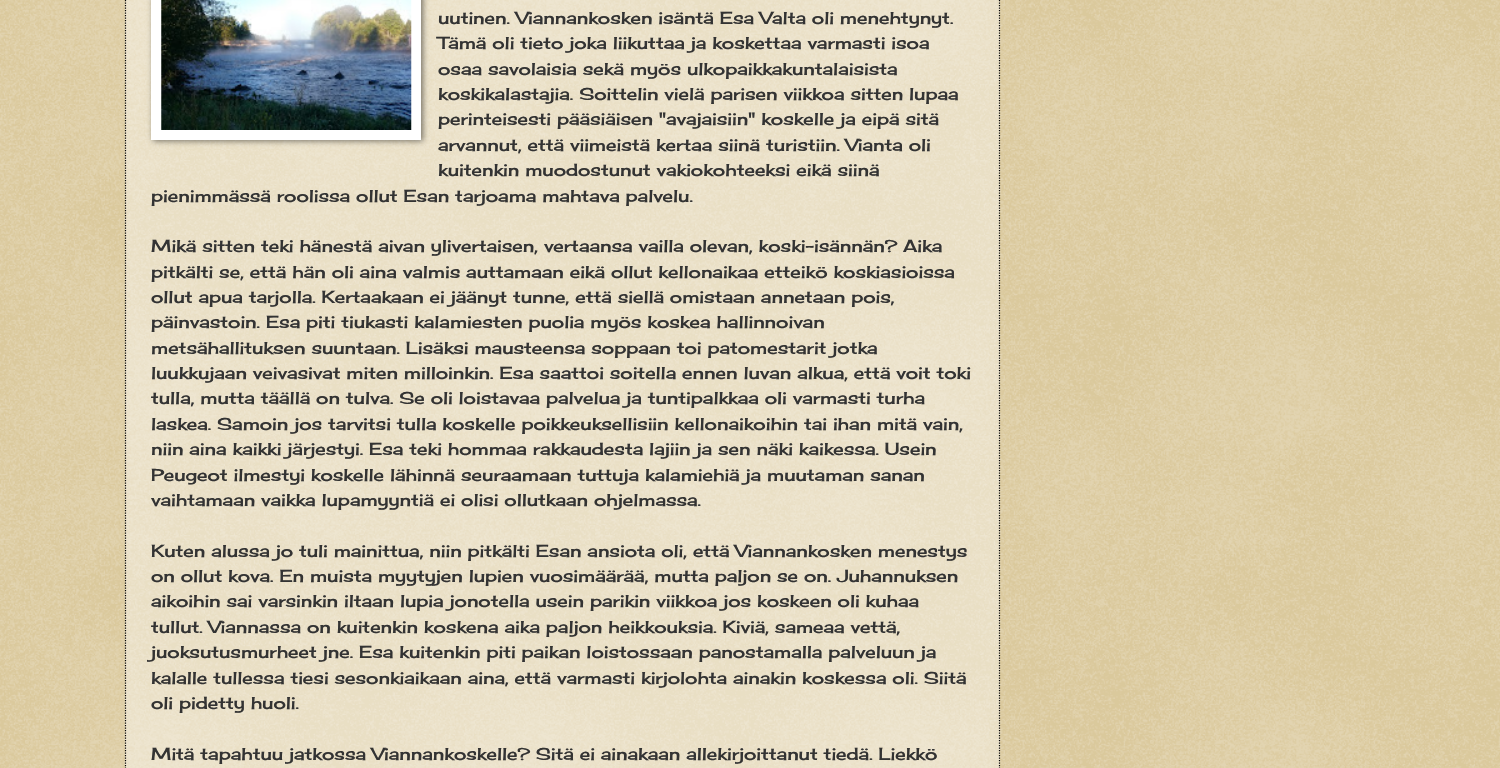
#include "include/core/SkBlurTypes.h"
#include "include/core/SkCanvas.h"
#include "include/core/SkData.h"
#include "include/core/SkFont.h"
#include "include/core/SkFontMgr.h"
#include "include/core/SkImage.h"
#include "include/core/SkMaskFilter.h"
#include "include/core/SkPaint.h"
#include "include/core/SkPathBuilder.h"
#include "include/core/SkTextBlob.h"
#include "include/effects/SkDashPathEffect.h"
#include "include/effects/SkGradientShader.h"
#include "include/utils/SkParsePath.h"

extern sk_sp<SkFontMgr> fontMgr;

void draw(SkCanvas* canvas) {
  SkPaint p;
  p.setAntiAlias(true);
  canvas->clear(SkColorSetRGB(192, 161, 84));
  canvas->drawImageRect(SkImages::DeferredFromEncodedData(SkData::MakeFromFileName("images/1.png")), SkRect::MakeLTRB(0, 0, 1500, 768), SkSamplingOptions());
  p.setColor(SkColorSetARGB(102, 255, 255, 255));
  canvas->drawRect(SkRect::MakeLTRB(125, 0, 1000, 768), p);
  p.setStyle(SkPaint::kStroke_Style);
  p.setStrokeWidth(1.2f);
  p.setColor(SK_ColorBLACK);
  p.setPathEffect(SkDashPathEffect::Make({{1.25f, 1.25f}}, 0));
  canvas->drawPath(SkPathBuilder().moveTo(999.5f, -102.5f).lineTo(999.5f, 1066).detach(), p);
  p.setPathEffect(nullptr);
  p.setPathEffect(SkDashPathEffect::Make({{1.25f, 1.25f}}, 0));
  canvas->drawPath(SkPathBuilder().moveTo(125.5f, -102.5f).lineTo(125.5f, 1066).detach(), p);
  p.setPathEffect(nullptr);
  p.setStyle(SkPaint::kFill_Style);
  p.setColor(SkColorSetARGB(128, 0, 0, 0));
  p.setMaskFilter(SkMaskFilter::MakeBlur(kNormal_SkBlurStyle, 3));
  canvas->drawRect(SkRect::MakeLTRB(153, -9, 423, 141), p);
  p.setMaskFilter(nullptr);
  p.setColor(SK_ColorWHITE);
  canvas->drawRect(SkRect::MakeLTRB(151, 0, 421, 140), p);
  canvas->drawImageRect(SkImages::DeferredFromEncodedData(SkData::MakeFromFileName("images/2.png")), SkRect::MakeLTRB(161, 0, 412, 130), SkSamplingOptions());
  SkFont font1(fontMgr->matchFamilyStyle("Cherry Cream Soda", SkFontStyle::Normal()), 16.9f);
  font1.setSubpixel(true);
  p.setColor(SkColorSetRGB(51, 51, 51));
  canvas->drawString("uutinen. Viannankosken isäntä Esa Valta oli menehtynyt.", 438, 24, font1, p);
  canvas->drawString("Tämä oli tieto joka liikuttaa ja koskettaa varmasti isoa", 438, 49, font1, p);
  canvas->drawString("osaa savolaisia sekä myös ulkopaikkakuntalaisista", 438, 75, font1, p);
  canvas->drawString("koskikalastajia. Soittelin vielä parisen viikkoa sitten lupaa", 438, 100, font1, p);
  canvas->drawString("perinteisesti pääsiäisen \"avajaisiin\" koskelle ja eipä sitä", 438, 125, font1, p);
  canvas->drawString("arvannut, että viimeistä kertaa siinä turistiin. Vianta oli", 438, 151, font1, p);
  canvas->drawString("kuitenkin muodostunut vakiokohteeksi eikä siinä", 438, 176, font1, p);
  canvas->drawString("pienimmässä roolissa ollut Esan tarjoama mahtava palvelu.", 151, 202, font1, p);
  canvas->drawString("Mikä sitten teki hänestä aivan ylivertaisen, vertaansa vailla olevan, koski-isännän? Aika", 151, 252, font1, p);
  canvas->drawString("pitkälti se, että hän oli aina valmis auttamaan eikä ollut kellonaikaa etteikö koskiasioissa", 151, 278, font1, p);
  canvas->drawString("ollut apua tarjolla. Kertaakaan ei jäänyt tunne, että siellä omistaan annetaan pois,", 151, 303, font1, p);
  canvas->drawString("päinvastoin. Esa piti tiukasti kalamiesten puolia myös koskea hallinnoivan", 151, 328, font1, p);
  canvas->drawString("metsähallituksen suuntaan. Lisäksi mausteensa soppaan toi patomestarit jotka", 151, 354, font1, p);
  canvas->drawString("luukkujaan veivasivat miten milloinkin. Esa saattoi soitella ennen luvan alkua, että voit toki", 151, 379, font1, p);
  canvas->drawString("tulla, mutta täällä on tulva. Se oli loistavaa palvelua ja tuntipalkkaa oli varmasti turha", 151, 404, font1, p);
  canvas->drawString("laskea. Samoin jos tarvitsi tulla koskelle poikkeuksellisiin kellonaikoihin tai ihan mitä vain,", 151, 430, font1, p);
  canvas->drawString("niin aina kaikki järjestyi. Esa teki hommaa rakkaudesta lajiin ja sen näki kaikessa. Usein", 151, 455, font1, p);
  canvas->drawString("Peugeot ilmestyi koskelle lähinnä seuraamaan tuttuja kalamiehiä ja muutaman sanan", 151, 481, font1, p);
  canvas->drawString("vaihtamaan vaikka lupamyyntiä ei olisi ollutkaan ohjelmassa.", 151, 506, font1, p);
  canvas->drawString("Kuten alussa jo tuli mainittua, niin pitkälti Esan ansiota oli, että Viannankosken menestys", 151, 557, font1, p);
  canvas->drawString("on ollut kova. En muista myytyjen lupien vuosimäärää, mutta paljon se on. Juhannuksen", 151, 582, font1, p);
  canvas->drawString("aikoihin sai varsinkin iltaan lupia jonotella usein parikin viikkoa jos koskeen oli kuhaa", 151, 607, font1, p);
  canvas->drawString("tullut. Viannassa on kuitenkin koskena aika paljon heikkouksia. Kiviä, sameaa vettä,", 151, 633, font1, p);
  canvas->drawString("juoksutusmurheet jne. Esa kuitenkin piti paikan loistossaan panostamalla palveluun ja", 151, 658, font1, p);
  canvas->drawString("kalalle tullessa tiesi sesonkiaikaan aina, että varmasti kirjolohta ainakin koskessa oli. Siitä", 151, 684, font1, p);
  canvas->drawString("oli pidetty huoli.", 151, 709, font1, p);
  canvas->drawString("Mitä tapahtuu jatkossa Viannankoskelle? Sitä ei ainakaan allekirjoittanut tiedä. Liekkö", 151, 760, font1, p);
}
